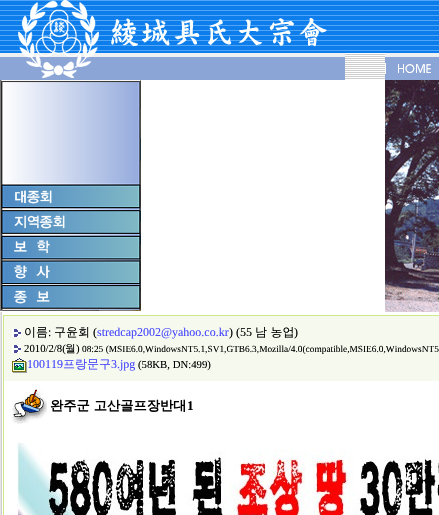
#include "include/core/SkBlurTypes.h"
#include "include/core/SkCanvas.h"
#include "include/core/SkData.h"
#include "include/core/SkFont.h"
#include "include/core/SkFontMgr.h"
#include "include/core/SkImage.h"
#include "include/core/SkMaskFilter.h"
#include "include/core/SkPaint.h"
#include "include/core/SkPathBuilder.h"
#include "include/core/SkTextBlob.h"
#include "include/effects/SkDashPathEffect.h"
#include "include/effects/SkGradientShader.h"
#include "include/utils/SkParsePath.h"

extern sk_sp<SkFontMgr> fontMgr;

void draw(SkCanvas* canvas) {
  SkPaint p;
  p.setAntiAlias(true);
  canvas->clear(SK_ColorWHITE);
  canvas->drawImageRect(SkImages::DeferredFromEncodedData(SkData::MakeFromFileName("images/1.png")), SkRect::MakeLTRB(345, 53, 385, 80), SkSamplingOptions());
  canvas->drawImageRect(SkImages::DeferredFromEncodedData(SkData::MakeFromFileName("images/2.png")), SkRect::MakeLTRB(0, 0, 439, 53), SkSamplingOptions());
  canvas->drawImageRect(SkImages::DeferredFromEncodedData(SkData::MakeFromFileName("images/3.png")), SkRect::MakeLTRB(0, 53, 345, 80), SkSamplingOptions());
  canvas->drawImageRect(SkImages::DeferredFromEncodedData(SkData::MakeFromFileName("images/4.png")), SkRect::MakeLTRB(385, 53, 439, 80), SkSamplingOptions());
  canvas->drawImageRect(SkImages::DeferredFromEncodedData(SkData::MakeFromFileName("images/5.png")), SkRect::MakeLTRB(0, 80, 141, 186), SkSamplingOptions());
  canvas->drawImageRect(SkImages::DeferredFromEncodedData(SkData::MakeFromFileName("images/6.png")), SkRect::MakeLTRB(0, 186, 141, 209), SkSamplingOptions());
  canvas->drawImageRect(SkImages::DeferredFromEncodedData(SkData::MakeFromFileName("images/7.png")), SkRect::MakeLTRB(0, 209, 141, 235), SkSamplingOptions());
  canvas->drawImageRect(SkImages::DeferredFromEncodedData(SkData::MakeFromFileName("images/8.png")), SkRect::MakeLTRB(0, 235, 141, 257), SkSamplingOptions());
  canvas->drawImageRect(SkImages::DeferredFromEncodedData(SkData::MakeFromFileName("images/9.png")), SkRect::MakeLTRB(0, 257, 141, 284), SkSamplingOptions());
  canvas->drawImageRect(SkImages::DeferredFromEncodedData(SkData::MakeFromFileName("images/10.png")), SkRect::MakeLTRB(0, 284, 141, 311), SkSamplingOptions());
  canvas->drawImageRect(SkImages::DeferredFromEncodedData(SkData::MakeFromFileName("images/11.png")), SkRect::MakeLTRB(385, 80, 439, 312), SkSamplingOptions());
  canvas->drawImageRect(SkImages::DeferredFromEncodedData(SkData::MakeFromFileName("images/12.png")), SkRect::MakeLTRB(0, 312, 439, 515), SkSamplingOptions());
  p.setStyle(SkPaint::kStroke_Style);
  p.setStrokeWidth(1);
  p.setColor(SkColorSetRGB(204, 232, 136));
  canvas->drawRect(SkRect::MakeLTRB(3.5f, 315.5f, 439.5f, 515.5f), p);
  p.setStyle(SkPaint::kFill_Style);
  p.setColor(SkColorSetRGB(246, 250, 238));
  canvas->drawRect(SkRect::MakeLTRB(4, 316, 439, 381), p);
  canvas->drawImageRect(SkImages::DeferredFromEncodedData(SkData::MakeFromFileName("images/13.png")), SkRect::MakeLTRB(12, 329, 21, 337), SkSamplingOptions());
  canvas->drawImageRect(SkImages::DeferredFromEncodedData(SkData::MakeFromFileName("images/13.png")), SkRect::MakeLTRB(12, 345, 21, 353), SkSamplingOptions());
  canvas->drawImageRect(SkImages::DeferredFromEncodedData(SkData::MakeFromFileName("images/14.png")), SkRect::MakeLTRB(12, 358, 27, 373), SkSamplingOptions());
  canvas->drawImageRect(SkImages::DeferredFromEncodedData(SkData::MakeFromFileName("images/15.png")), SkRect::MakeLTRB(12, 389, 47, 424), SkSamplingOptions());
  canvas->drawImageRect(SkImages::DeferredFromEncodedData(SkData::MakeFromFileName("images/16.png")), SkRect::MakeLTRB(17, 442, 439, 515), SkSamplingOptions());
  SkFont font1(fontMgr->matchFamilyStyle("WenQuanYi Zen Hei", SkFontStyle(500, SkFontStyle::kNormal_Width, SkFontStyle::kUpright_Slant)), 12);
  font1.setSubpixel(true);
  p.setColor(SK_ColorBLACK);
  canvas->drawString("이름", 24, 336, font1, p);
  SkFont font2(fontMgr->matchFamilyStyle("Liberation Serif", SkFontStyle::Normal()), 12);
  font2.setSubpixel(true);
  canvas->drawString(":", 48, 336, font2, p);
  canvas->drawString("구윤회", 54, 336, font1, p);
  canvas->drawString("(", 93, 336, font2, p);
  p.setColor(SkColorSetRGB(68, 68, 255));
  canvas->drawString("stredcap2002@yahoo.co.kr", 97, 336, font2, p);
  p.setColor(SK_ColorBLACK);
  canvas->drawString(") (55", 229, 336, font2, p);
  canvas->drawString("남 농업", 255, 336, font1, p);
  canvas->drawString(")", 294, 336, font2, p);
  SkFont font3(fontMgr->matchFamilyStyle("Liberation Serif", SkFontStyle::Normal()), 10.75f);
  font3.setSubpixel(true);
  canvas->drawString("2010/2/8(", 24, 352, font3, p);
  SkFont font4(fontMgr->matchFamilyStyle("WenQuanYi Zen Hei", SkFontStyle(500, SkFontStyle::kNormal_Width, SkFontStyle::kUpright_Slant)), 10.75f);
  font4.setSubpixel(true);
  canvas->drawString("월", 65, 352, font4, p);
  canvas->drawString(")", 76, 352, font3, p);
  SkFont font5(fontMgr->matchFamilyStyle("Liberation Serif", SkFontStyle::Normal()), 9.35f);
  font5.setSubpixel(true);
  canvas->drawString("08:25 (MSIE6.0,WindowsNT5.1,SV1,GTB6.3,Mozilla/4.0(compatible,MSIE6.0,WindowsNT5", 82, 352, font5, p);
  p.setColor(SkColorSetRGB(68, 68, 255));
  canvas->drawString("100119", 27, 368, font2, p);
  canvas->drawString("프랑문구", 63, 368, font1, p);
  canvas->drawString("3.jpg", 111, 368, font2, p);
  p.setColor(SK_ColorBLACK);
  canvas->drawString("(58KB, DN:499)", 138, 368, font3, p);
  SkFont font6(fontMgr->matchFamilyStyle("WenQuanYi Zen Hei", SkFontStyle::Bold()), 13.25f);
  font6.setSubpixel(true);
  canvas->drawString("완주군 고산골프장반대", 50, 410, font6, p);
  SkFont font7(fontMgr->matchFamilyStyle("Liberation Serif", SkFontStyle::Bold()), 13.25f);
  font7.setSubpixel(true);
  canvas->drawString("1", 187, 410, font7, p);
}
